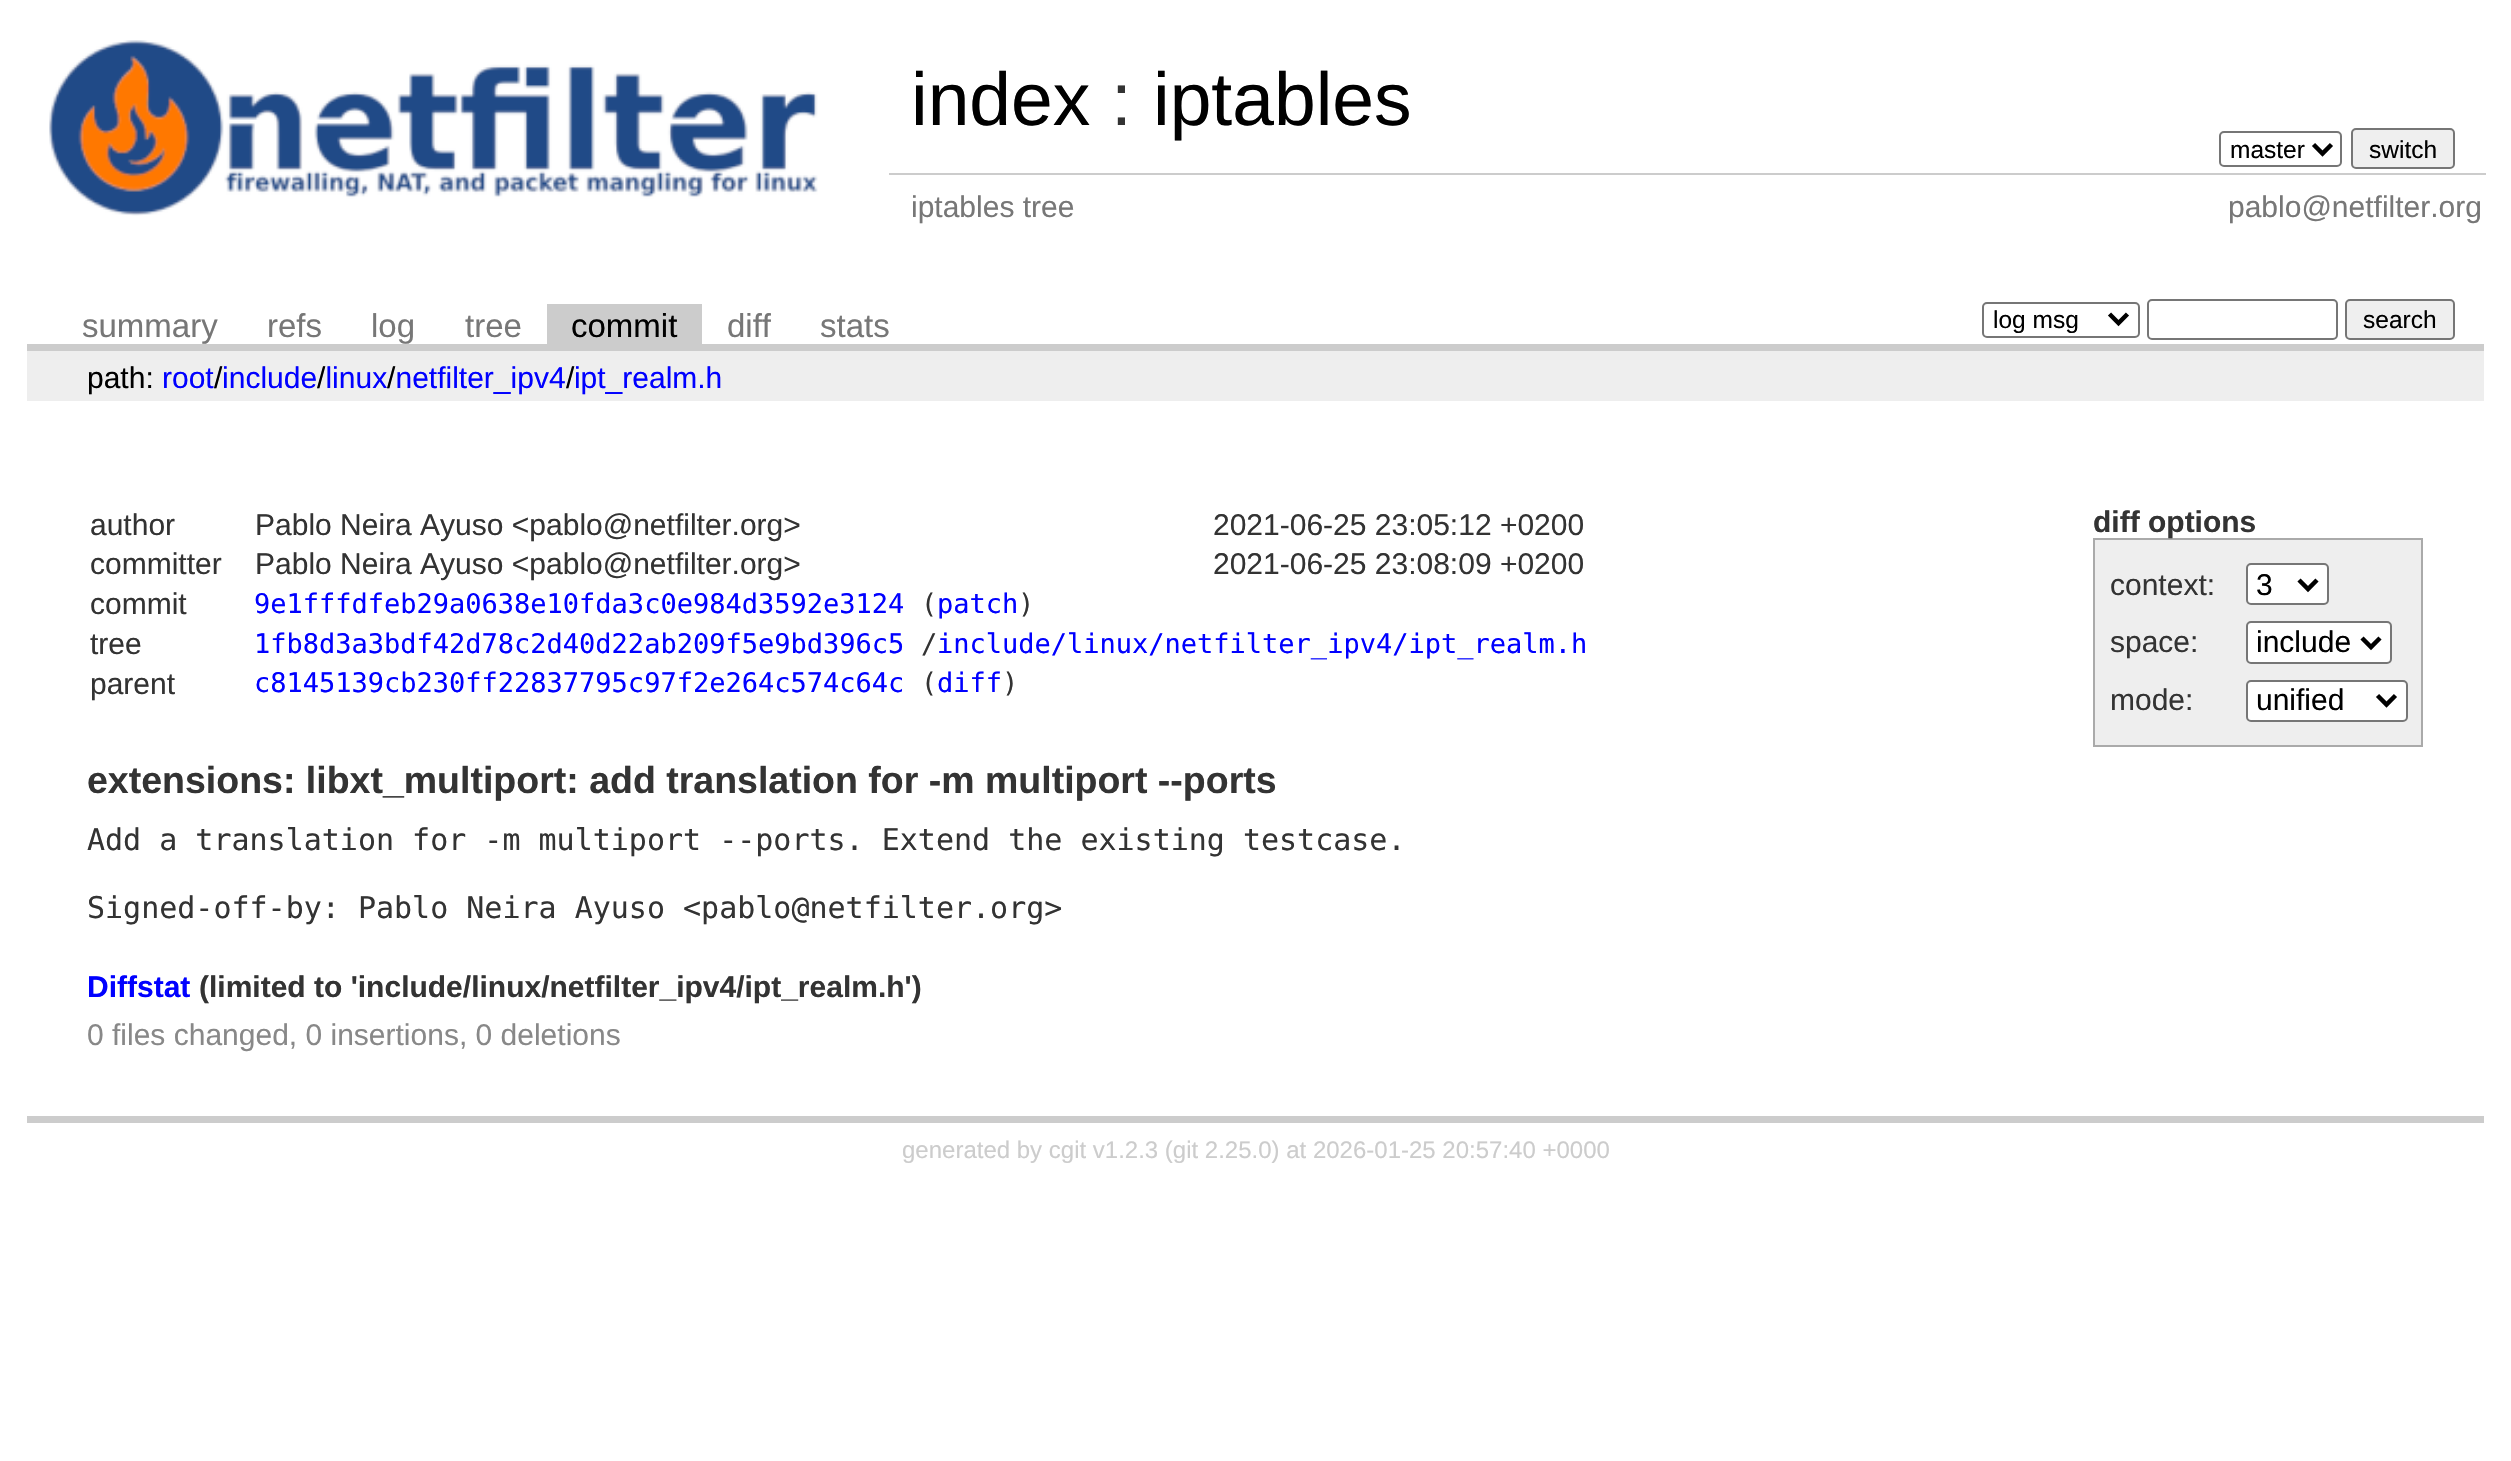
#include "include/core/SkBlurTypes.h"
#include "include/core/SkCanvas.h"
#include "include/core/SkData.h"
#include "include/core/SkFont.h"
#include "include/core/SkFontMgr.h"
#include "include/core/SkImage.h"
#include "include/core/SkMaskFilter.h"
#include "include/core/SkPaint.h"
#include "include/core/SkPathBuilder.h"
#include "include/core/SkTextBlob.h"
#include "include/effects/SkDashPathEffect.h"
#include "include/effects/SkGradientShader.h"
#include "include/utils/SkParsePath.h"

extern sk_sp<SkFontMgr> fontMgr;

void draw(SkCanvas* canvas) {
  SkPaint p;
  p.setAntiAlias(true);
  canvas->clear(SK_ColorWHITE);
  canvas->drawImageRect(SkImages::DeferredFromEncodedData(SkData::MakeFromFileName("images/1.png")), SkRect::MakeLTRB(49, 40, 818, 216), SkSamplingOptions());
  p.setStyle(SkPaint::kStroke_Style);
  p.setStrokeWidth(2);
  p.setColor(SkColorSetRGB(118, 118, 118));
  canvas->drawRoundRect(SkRect::MakeLTRB(2220, 132, 2341, 166), 4, 4, p);
  p.setStrokeWidth(4.5f);
  p.setColor(SK_ColorBLACK);
  canvas->drawPath(SkPathBuilder().moveTo(2313.5f, 144.5f).lineTo(2322.5f, 153.5f).lineTo(2331.5f, 144.5f).detach(), p);
  p.setStyle(SkPaint::kFill_Style);
  p.setColor(SkColorSetRGB(239, 239, 239));
  canvas->drawRoundRect(SkRect::MakeLTRB(2352, 129, 2454, 168), 4, 4, p);
  p.setStyle(SkPaint::kStroke_Style);
  p.setStrokeWidth(2);
  p.setColor(SkColorSetRGB(118, 118, 118));
  canvas->drawRoundRect(SkRect::MakeLTRB(2352, 129, 2454, 168), 4, 4, p);
  p.setStyle(SkPaint::kFill_Style);
  p.setColor(SkColorSetRGB(204, 204, 204));
  canvas->drawRect(SkRect::MakeLTRB(889, 173, 2486, 175), p);
  canvas->drawRect(SkRect::MakeLTRB(27, 344, 2484, 351), p);
  canvas->drawRect(SkRect::MakeLTRB(547, 304, 702, 344), p);
  p.setStyle(SkPaint::kStroke_Style);
  p.setColor(SkColorSetRGB(118, 118, 118));
  canvas->drawRoundRect(SkRect::MakeLTRB(1983, 303, 2139, 337), 4, 4, p);
  p.setStrokeWidth(4.5f);
  p.setColor(SK_ColorBLACK);
  canvas->drawPath(SkPathBuilder().moveTo(2109.5f, 314).lineTo(2118.5f, 323).lineTo(2127.5f, 314).detach(), p);
  p.setStrokeWidth(2);
  p.setColor(SkColorSetRGB(118, 118, 118));
  canvas->drawRoundRect(SkRect::MakeLTRB(2148, 300, 2337, 339), 4, 4, p);
  p.setStyle(SkPaint::kFill_Style);
  p.setColor(SkColorSetRGB(239, 239, 239));
  canvas->drawRoundRect(SkRect::MakeLTRB(2346, 300, 2454, 339), 4, 4, p);
  p.setStyle(SkPaint::kStroke_Style);
  p.setColor(SkColorSetRGB(118, 118, 118));
  canvas->drawRoundRect(SkRect::MakeLTRB(2346, 300, 2454, 339), 4, 4, p);
  p.setStyle(SkPaint::kFill_Style);
  p.setColor(SkColorSetRGB(238, 238, 238));
  canvas->drawRect(SkRect::MakeLTRB(27, 351, 2484, 401), p);
  p.setColor(SkColorSetRGB(204, 204, 204));
  canvas->drawRect(SkRect::MakeLTRB(27, 1116, 2484, 1123), p);
  p.setColor(SkColorSetRGB(238, 238, 238));
  canvas->drawRect(SkRect::MakeLTRB(2095, 540, 2421, 745), p);
  p.setColor(SkColorSetRGB(170, 170, 170));
  canvas->drawRect(SkRect::MakeLTRB(2093, 538, 2423, 540), p);
  canvas->drawRect(SkRect::MakeLTRB(2421, 538, 2423, 747), p);
  canvas->drawRect(SkRect::MakeLTRB(2093, 745, 2423, 747), p);
  canvas->drawRect(SkRect::MakeLTRB(2093, 538, 2095, 747), p);
  p.setColor(SK_ColorWHITE);
  canvas->drawRoundRect(SkRect::MakeLTRB(2247, 564, 2328, 604), 4, 4, p);
  p.setStyle(SkPaint::kStroke_Style);
  p.setColor(SkColorSetRGB(118, 118, 118));
  canvas->drawRoundRect(SkRect::MakeLTRB(2247, 564, 2328, 604), 4, 4, p);
  p.setStrokeWidth(4.5f);
  p.setColor(SK_ColorBLACK);
  canvas->drawPath(SkPathBuilder().moveTo(2299, 580).lineTo(2308, 589).lineTo(2317, 580).detach(), p);
  p.setStyle(SkPaint::kFill_Style);
  p.setColor(SK_ColorWHITE);
  canvas->drawRoundRect(SkRect::MakeLTRB(2247, 622, 2391, 663), 4, 4, p);
  p.setStyle(SkPaint::kStroke_Style);
  p.setStrokeWidth(2);
  p.setColor(SkColorSetRGB(118, 118, 118));
  canvas->drawRoundRect(SkRect::MakeLTRB(2247, 622, 2391, 663), 4, 4, p);
  p.setStrokeWidth(4.5f);
  p.setColor(SK_ColorBLACK);
  canvas->drawPath(SkPathBuilder().moveTo(2362, 638).lineTo(2371, 647).lineTo(2380, 638).detach(), p);
  p.setStyle(SkPaint::kFill_Style);
  p.setColor(SK_ColorWHITE);
  canvas->drawRoundRect(SkRect::MakeLTRB(2247, 681, 2407, 721), 4, 4, p);
  p.setStyle(SkPaint::kStroke_Style);
  p.setStrokeWidth(2);
  p.setColor(SkColorSetRGB(118, 118, 118));
  canvas->drawRoundRect(SkRect::MakeLTRB(2247, 681, 2407, 721), 4, 4, p);
  p.setStrokeWidth(4.5f);
  p.setColor(SK_ColorBLACK);
  canvas->drawPath(SkPathBuilder().moveTo(2377.5f, 695.5f).lineTo(2386.5f, 704.5f).lineTo(2395.5f, 695.5f).detach(), p);
  SkFont font1(fontMgr->matchFamilyStyle("Liberation Sans", SkFontStyle::Normal()), 75);
  font1.setSubpixel(true);
  p.setStyle(SkPaint::kFill_Style);
  canvas->drawString("index", 911, 125, font1, p);
  p.setColor(SkColorSetRGB(51, 51, 51));
  canvas->drawString(":", 1111, 125, font1, p);
  p.setColor(SK_ColorBLACK);
  canvas->drawString("iptables", 1153, 125, font1, p);
  SkFont font2(fontMgr->matchFamilyStyle("Liberation Sans", SkFontStyle::Normal()), 24.5f);
  font2.setSubpixel(true);
  canvas->drawString("master", 2230, 158, font2, p);
  canvas->drawString("switch", 2369, 158, font2, p);
  SkFont font3(fontMgr->matchFamilyStyle("Liberation Sans", SkFontStyle::Normal()), 30);
  font3.setSubpixel(true);
  p.setColor(SkColorSetRGB(119, 119, 119));
  canvas->drawString("iptables tree", 911, 217, font3, p);
  canvas->drawString("pablo@netfilter.org", 2228, 217, font3, p);
  SkFont font4(fontMgr->matchFamilyStyle("Liberation Sans", SkFontStyle::Normal()), 33);
  font4.setSubpixel(true);
  canvas->drawString("summary", 82, 337, font4, p);
  canvas->drawString("refs", 267, 337, font4, p);
  canvas->drawString("log", 371, 337, font4, p);
  canvas->drawString("tree", 465, 337, font4, p);
  p.setColor(SK_ColorBLACK);
  canvas->drawString("commit", 571, 337, font4, p);
  p.setColor(SkColorSetRGB(119, 119, 119));
  canvas->drawString("diff", 727, 337, font4, p);
  canvas->drawString("stats", 820, 337, font4, p);
  p.setColor(SK_ColorBLACK);
  canvas->drawString("log msg", 1993, 328, font2, p);
  canvas->drawString("search", 2363, 328, font2, p);
  canvas->drawString("path:", 87, 388, font3, p);
  p.setColor(SkColorSetRGB(0, 0, 255));
  canvas->drawString("root include linux netfilter_ipv4 ipt_realm.h", 162, 388, font3, p);
  p.setColor(SK_ColorBLACK);
  canvas->drawString("/", 214, 388, font3, p);
  canvas->drawString("/", 317, 388, font3, p);
  canvas->drawString("/", 387, 388, font3, p);
  canvas->drawString("/", 566, 388, font3, p);
  p.setColor(SkColorSetRGB(51, 51, 51));
  canvas->drawString("author", 90, 535, font3, p);
  canvas->drawString("Pablo Neira Ayuso <pablo@netfilter.org>", 255, 535, font3, p);
  canvas->drawString("2021-06-25 23:05:12 +0200", 1213, 535, font3, p);
  canvas->drawString("committer", 90, 574, font3, p);
  canvas->drawString("Pablo Neira Ayuso <pablo@netfilter.org>", 255, 574, font3, p);
  canvas->drawString("2021-06-25 23:08:09 +0200", 1213, 574, font3, p);
  canvas->drawString("commit", 90, 614, font3, p);
  SkFont font5(fontMgr->matchFamilyStyle("DejaVu Sans Mono", SkFontStyle::Normal()), 27);
  font5.setSubpixel(true);
  p.setColor(SkColorSetRGB(0, 0, 255));
  canvas->drawString("9e1fffdfeb29a0638e10fda3c0e984d3592e3124", 254, 613, font5, p);
  p.setColor(SkColorSetRGB(51, 51, 51));
  canvas->drawString("(", 921, 613, font5, p);
  p.setColor(SkColorSetRGB(0, 0, 255));
  canvas->drawString("patch", 937, 613, font5, p);
  p.setColor(SkColorSetRGB(51, 51, 51));
  canvas->drawString(")", 1018, 613, font5, p);
  canvas->drawString("tree", 90, 654, font3, p);
  p.setColor(SkColorSetRGB(0, 0, 255));
  canvas->drawString("1fb8d3a3bdf42d78c2d40d22ab209f5e9bd396c5", 254, 653, font5, p);
  p.setColor(SkColorSetRGB(51, 51, 51));
  canvas->drawString("/", 921, 653, font5, p);
  p.setColor(SkColorSetRGB(0, 0, 255));
  canvas->drawString("include/linux/netfilter_ipv4/ipt_realm.h", 937, 653, font5, p);
  p.setColor(SkColorSetRGB(51, 51, 51));
  canvas->drawString("parent", 90, 694, font3, p);
  p.setColor(SkColorSetRGB(0, 0, 255));
  canvas->drawString("c8145139cb230ff22837795c97f2e264c574c64c", 254, 692, font5, p);
  p.setColor(SkColorSetRGB(51, 51, 51));
  canvas->drawString("(", 921, 692, font5, p);
  p.setColor(SkColorSetRGB(0, 0, 255));
  canvas->drawString("diff", 937, 692, font5, p);
  p.setColor(SkColorSetRGB(51, 51, 51));
  canvas->drawString(")", 1002, 692, font5, p);
  SkFont font6(fontMgr->matchFamilyStyle("Liberation Sans", SkFontStyle::Bold()), 30);
  font6.setSubpixel(true);
  canvas->drawString("diff options", 2093, 532, font6, p);
  canvas->drawString("context:", 2110, 595, font3, p);
  p.setColor(SK_ColorBLACK);
  canvas->drawString("3", 2256, 595, font3, p);
  p.setColor(SkColorSetRGB(51, 51, 51));
  canvas->drawString("space:", 2110, 652, font3, p);
  p.setColor(SK_ColorBLACK);
  canvas->drawString("include", 2256, 652, font3, p);
  p.setColor(SkColorSetRGB(51, 51, 51));
  canvas->drawString("mode:", 2110, 710, font3, p);
  p.setColor(SK_ColorBLACK);
  canvas->drawString("unified", 2256, 710, font3, p);
  SkFont font7(fontMgr->matchFamilyStyle("Liberation Sans", SkFontStyle::Bold()), 37.5f);
  font7.setSubpixel(true);
  p.setColor(SkColorSetRGB(51, 51, 51));
  canvas->drawString("extensions: libxt_multiport: add translation for -m multiport --ports", 87, 793, font7, p);
  SkFont font8(fontMgr->matchFamilyStyle("DejaVu Sans Mono", SkFontStyle::Normal()), 30);
  font8.setSubpixel(true);
  canvas->drawString("Add a translation for -m multiport --ports. Extend the existing testcase.", 87, 850, font8, p);
  canvas->drawString("Signed-off-by: Pablo Neira Ayuso <pablo@netfilter.org>", 87, 918, font8, p);
  p.setColor(SkColorSetRGB(0, 0, 255));
  canvas->drawString("Diffstat", 87, 997, font6, p);
  p.setColor(SkColorSetRGB(51, 51, 51));
  canvas->drawString("(limited to 'include/linux/netfilter_ipv4/ipt_realm.h')", 199, 997, font6, p);
  p.setColor(SkColorSetRGB(136, 136, 136));
  canvas->drawString("0 files changed, 0 insertions, 0 deletions", 87, 1045, font3, p);
  SkFont font9(fontMgr->matchFamilyStyle("Liberation Sans", SkFontStyle::Normal()), 24);
  font9.setSubpixel(true);
  p.setColor(SkColorSetRGB(204, 204, 204));
  canvas->drawString("generated by cgit v1.2.3 (git 2.25.0) at 2026-01-25 20:57:40 +0000", 902, 1158, font9, p);
}
